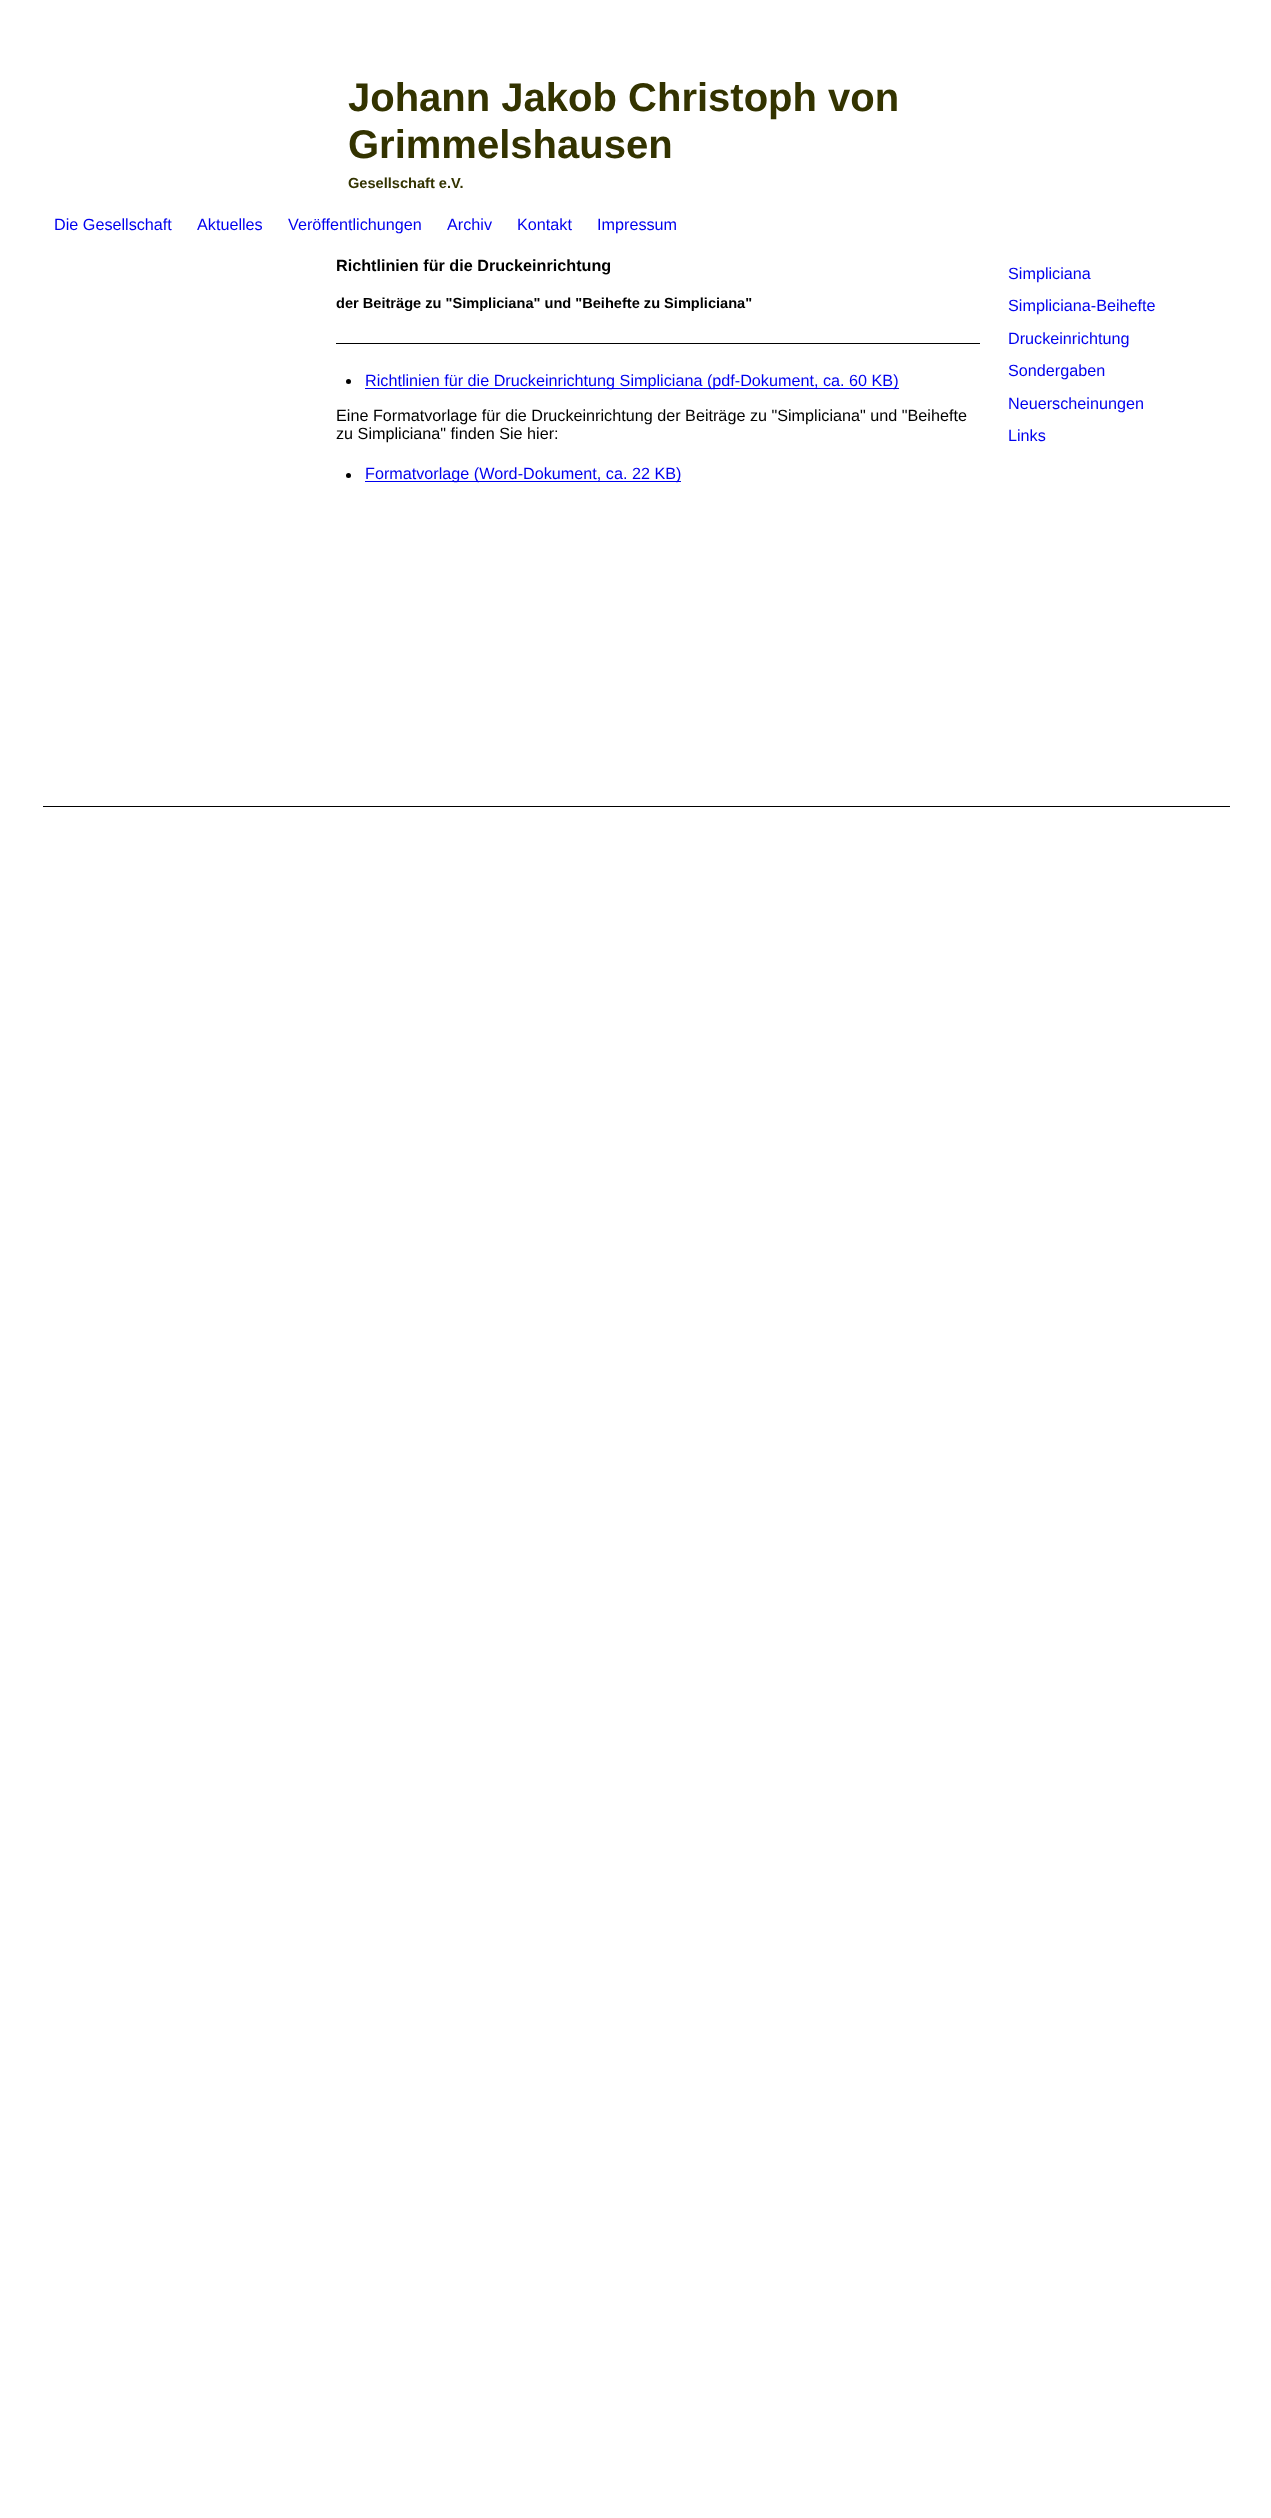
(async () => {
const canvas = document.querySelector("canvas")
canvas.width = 1271
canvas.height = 2518
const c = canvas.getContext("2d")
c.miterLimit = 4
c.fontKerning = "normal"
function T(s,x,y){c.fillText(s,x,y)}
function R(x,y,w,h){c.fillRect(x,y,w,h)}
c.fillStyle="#fff"
R(0,0,1271,2518)
c.font="bold 40px Liberation Sans"
c.fillStyle="#330"
T("Johann Jakob Christoph von",348,111)
T("Grimmelshausen",348,158)
c.font="bold 14.6px Liberation Sans"
T("Gesellschaft e.V.",348,188)
c.font="16.2px Liberation Sans"
c.fillStyle="#00e"
T("Die Gesellschaft",54,230)
T("Aktuelles",197,230)
T("Veröffentlichungen",288,230)
T("Archiv",447,230)
T("Kontakt",517,230)
T("Impressum",597,230)
c.font="bold 16.2px Liberation Sans"
c.fillStyle="#000"
T("Richtlinien für die Druckeinrichtung",336,271)
c.font="bold 14.6px Liberation Sans"
T("der Beiträge zu \"Simpliciana\" und \"Beihefte zu Simpliciana\"",336,308)
R(336,343,644,1)
c.beginPath()
c.arc(348.5,381.5,2.5,0,7)
c.fill()
c.fillStyle="#00e"
R(365,388,534,1)
c.font="16.2px Liberation Sans"
T("Richtlinien für die Druckeinrichtung Simpliciana (pdf-Dokument, ca. 60 KB)",365,386)
c.fillStyle="#000"
T("Eine Formatvorlage für die Druckeinrichtung der Beiträge zu \"Simpliciana\" und \"Beihefte",336,421)
T("zu Simpliciana\" finden Sie hier:",336,439)
c.beginPath()
c.arc(348.5,475.5,2.5,0,7)
c.fill()
c.fillStyle="#00e"
R(365,481,316,1)
T("Formatvorlage (Word-Dokument, ca. 22 KB)",365,479)
T("Simpliciana",1008,279)
T("Simpliciana-Beihefte",1008,311)
T("Druckeinrichtung",1008,344)
T("Sondergaben",1008,376)
T("Neuerscheinungen",1008,409)
T("Links",1008,441)
c.fillStyle="#000"
R(43,806,1187,1)
})()
